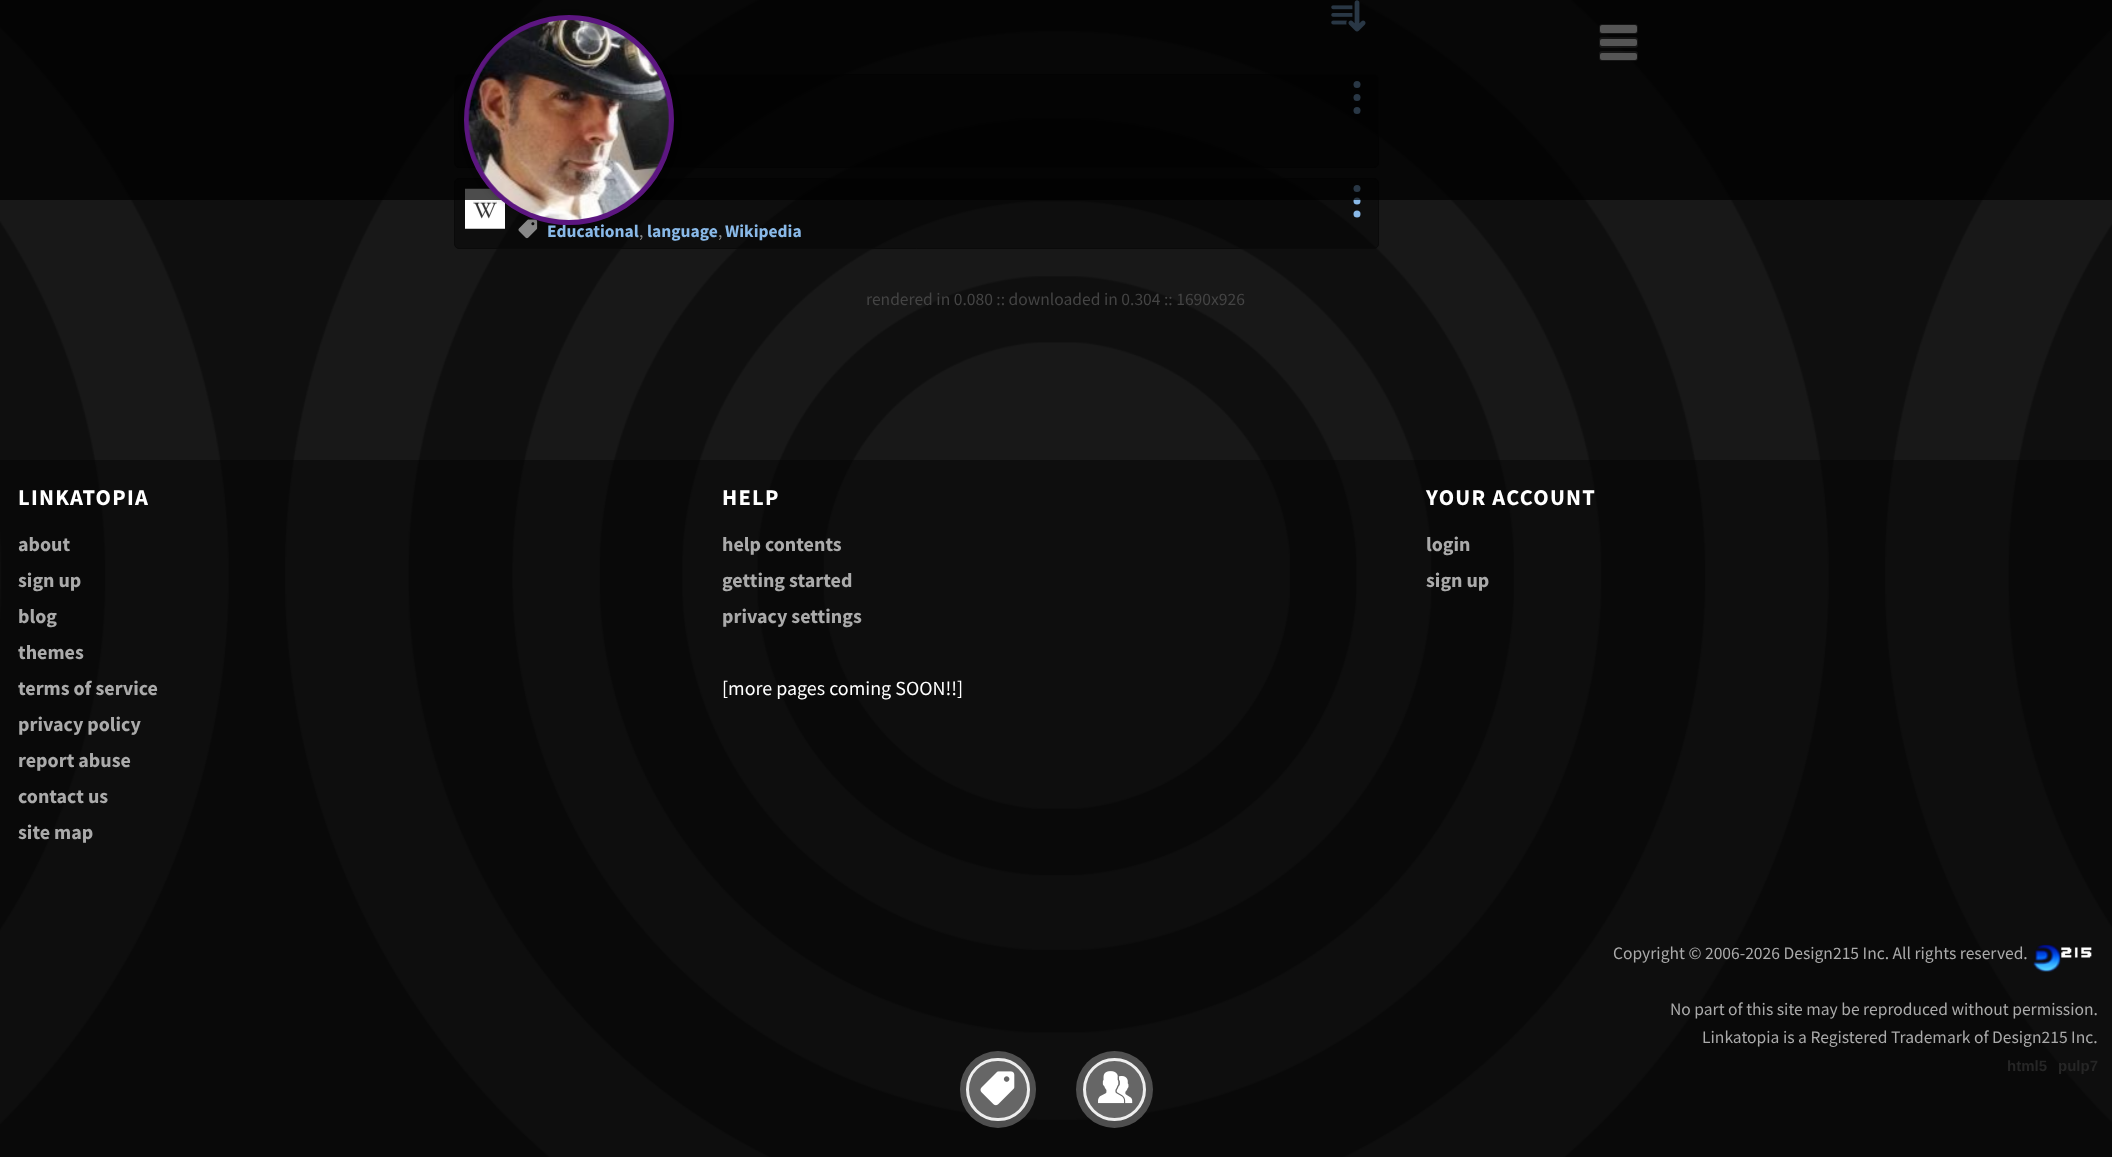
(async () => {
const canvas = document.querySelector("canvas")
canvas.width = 2112
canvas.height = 1157
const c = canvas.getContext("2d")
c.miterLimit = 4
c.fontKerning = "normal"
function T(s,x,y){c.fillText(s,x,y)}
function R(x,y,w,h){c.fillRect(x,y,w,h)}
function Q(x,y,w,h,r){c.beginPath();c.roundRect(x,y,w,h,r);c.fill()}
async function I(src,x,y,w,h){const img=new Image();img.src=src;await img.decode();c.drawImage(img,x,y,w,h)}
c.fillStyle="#fff"
R(0,0,2112,1157)
await I("1.png",0,793,2112,364)
await I("2.png",0,0,2112,793)
await I("4.png",1331,0,35,32)
c.fillStyle="#00000066"
c.beginPath()
c.roundRect(454.5,74.5,924,93,4.5)
c.fill()
c.strokeStyle="#0a0a0a"
c.stroke()
c.fillStyle="#89b9e8"
c.beginPath()
c.arc(1357,84.5,3.5,0,7)
c.fill()
c.beginPath()
c.arc(1357,97.5,3.5,0,7)
c.fill()
c.beginPath()
c.arc(1357,110.5,3.5,0,7)
c.fill()
c.fillStyle="#00000066"
c.beginPath()
c.roundRect(454.5,178.5,924,70,4.5)
c.fill()
c.stroke()
await I("5.png",465,188,40,41)
c.fillStyle="#89b9e8"
c.beginPath()
c.arc(1357,188.5,3.5,0,7)
c.fill()
c.beginPath()
c.arc(1357,201,3.5,0,7)
c.fill()
c.fillStyle="#000000b3"
R(0,0,2112,200)
await I("6.png",518,219,20,20)
c.fillStyle="#00000033"
c.filter="blur(3px)"
c.beginPath()
c.roundRect(465,16,210,210,105)
c.fill()
c.filter="none"
c.font="bold 17.5px Source Sans Pro"
c.fillStyle="#89b9e8"
T("Educational",547,237)
T("language",647,237)
c.fillStyle="#5c1680"
c.beginPath()
c.arc(569,120,102.5,0,7)
c.fill()
c.strokeStyle="#5c1680"
c.lineWidth=5
c.stroke()
await I("3.png",468,20,201,200)
c.fillStyle="#55555533"
Q(1599,24,39,10,3)
c.fillStyle="#555"
Q(1600,25,37,8,2)
c.fillStyle="#55555533"
Q(1599,37,39,11,3)
c.fillStyle="#555"
Q(1600,39,37,7,2)
c.fillStyle="#55555533"
Q(1599,51,39,10,3)
c.fillStyle="#555"
Q(1600,53,37,7,2)
c.fillStyle="#89b9e8"
c.beginPath()
c.arc(1357,214,3.5,0,7)
c.fill()
c.font="17.5px Source Sans Pro"
c.fillStyle="#888"
T(",",639,237)
T(",",718,237)
c.font="bold 17.5px Source Sans Pro"
c.fillStyle="#89b9e8"
T("Wikipedia",725,237)
c.font="17.5px Source Sans Pro"
c.fillStyle="#444"
T("rendered in 0.080 :: downloaded in 0.304 :: 1690x926",866,305)
c.fillStyle="#00000066"
R(0,460,2112,697)
c.fillStyle="#606060cc"
Q(960,1051,76,77,38)
c.fillStyle="#666"
c.beginPath()
c.roundRect(967.5,1059.5,61,60,30)
c.fill()
c.strokeStyle="#eee"
c.lineWidth=3
c.stroke()
await I("7.png",980,1071,35,35)
c.fillStyle="#606060cc"
c.beginPath()
c.arc(1114.5,1089.5,38.5,0,7)
c.fill()
c.fillStyle="#666"
c.beginPath()
c.arc(1114.5,1089.5,30,0,7)
c.fill()
c.stroke()
await I("8.png",1098,1071,35,33)
c.letterSpacing="1.25px"
c.font="bold 22.5px Source Sans Pro"
c.fillStyle="#fff"
T("LINKATOPIA",18,505)
c.letterSpacing="0px"
c.font="bold 20px Source Sans Pro"
c.fillStyle="#aaa"
T("about",18,551)
T("sign up",18,587)
T("blog",18,623)
T("themes",18,659)
T("terms of service",18,695)
T("privacy policy",18,731)
T("report abuse",18,767)
T("contact us",18,803)
T("site map",18,839)
c.letterSpacing="1.25px"
c.font="bold 22.5px Source Sans Pro"
c.fillStyle="#fff"
T("HELP",722,505)
c.letterSpacing="0px"
c.font="bold 20px Source Sans Pro"
c.fillStyle="#aaa"
T("help contents",722,551)
T("getting started",722,587)
T("privacy settings",722,623)
c.font="20px Source Sans Pro"
c.fillStyle="#fff"
T("[more pages coming SOON!!]",722,695)
c.letterSpacing="1.25px"
c.font="bold 22.5px Source Sans Pro"
T("YOUR ACCOUNT",1426,505)
c.letterSpacing="0px"
c.font="bold 20px Source Sans Pro"
c.fillStyle="#aaa"
T("login",1426,551)
T("sign up",1426,587)
c.font="17.5px Source Sans Pro"
T("Copyright © 2006-2026 Design215 Inc. All rights reserved.",1613,959)
await I("9.png",2033,944,59,28)
T("No part of this site may be reproduced without permission.",1670,1015)
T("Linkatopia is a Registered Trademark of Design215 Inc.",1702,1043)
c.font="bold 15px Liberation Sans"
c.fillStyle="#262626"
T("html5",2007,1071)
T("pulp7",2058,1071)
})()
